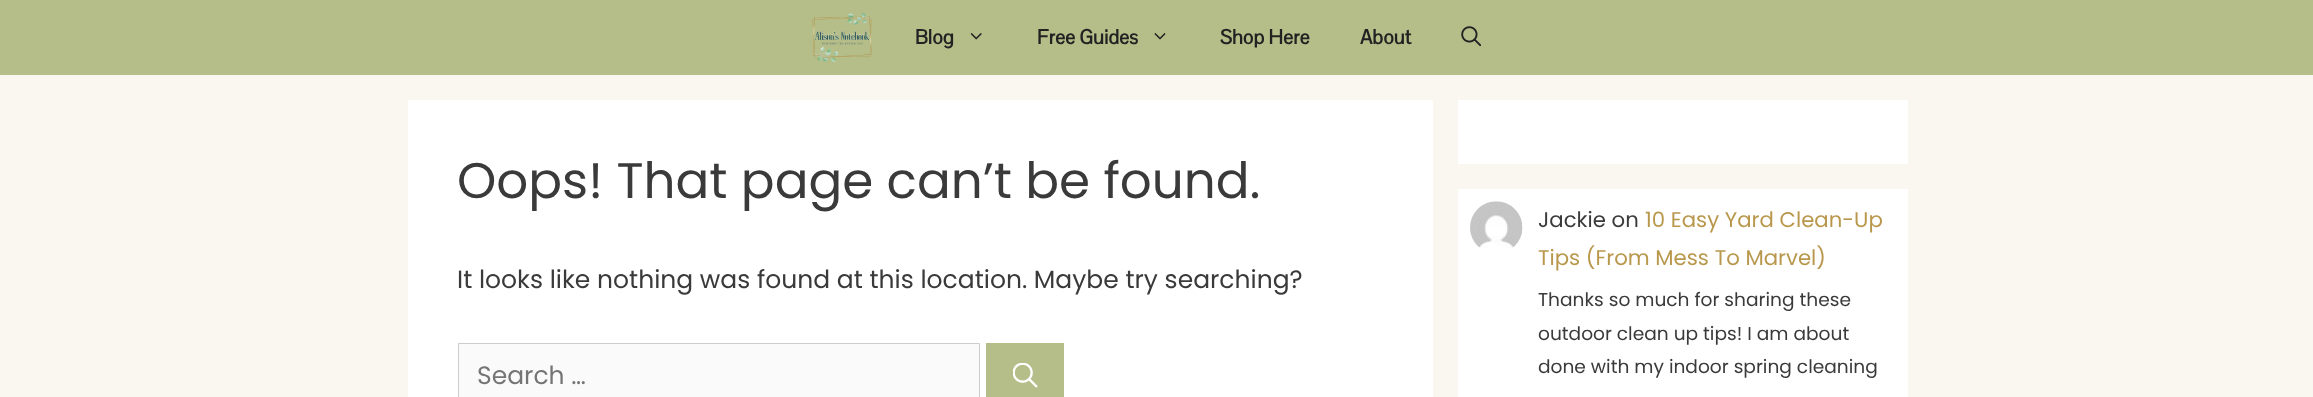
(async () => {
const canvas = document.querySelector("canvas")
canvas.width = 2313
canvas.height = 397
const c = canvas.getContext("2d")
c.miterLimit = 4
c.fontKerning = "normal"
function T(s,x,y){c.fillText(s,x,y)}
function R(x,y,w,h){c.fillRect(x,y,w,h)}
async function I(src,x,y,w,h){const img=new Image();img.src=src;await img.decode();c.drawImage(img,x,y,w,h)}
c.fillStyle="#f9f7f0"
R(0,0,2313,397)
c.fillStyle="#b5bd89"
R(0,0,2313,75)
await I("1.png",812,12,60,50)
c.font="bold 20px Pontano Sans"
c.fillStyle="#222"
T("Blog",915,44)
await I("2.png",970,33,12,7)
T("Free Guides",1037,44)
await I("3.png",1154,33,12,7)
T("Shop Here",1220,44)
T("About",1360,44)
await I("4.png",1461,26,20,20)
c.fillStyle="#fff"
R(408,100,1025,297)
c.font="50px Poppins"
c.fillStyle="#3a3a3a"
T("Oops! That page can’t be found.",457,198)
c.font="25px Poppins"
T("It looks like nothing was found at this location. Maybe try searching?",457,288)
c.fillStyle="#fafafa"
c.beginPath()
c.rect(458.5,343.5,521,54)
c.fill()
c.strokeStyle="#ccc"
c.stroke()
c.fillStyle="#757575"
T("Search …",477,384)
c.fillStyle="#b5bd89"
R(986,343,78,54)
await I("5.png",1013,363,25,25)
c.fillStyle="#fff"
R(1458,100,450,64)
R(1458,189,450,208)
await I("6.png",1470,201,53,47)
c.font="21.25px Poppins"
c.fillStyle="#3a3a3a"
T("Jackie on",1538,227)
c.fillStyle="#b9984d"
T("10 Easy Yard Clean-Up",1645,227)
T("Tips (From Mess To Marvel)",1538,265)
c.font="18.6px Poppins"
c.fillStyle="#3a3a3a"
T("Thanks so much for sharing these",1538,306)
T("outdoor clean up tips! I am about",1538,340)
T("done with my indoor spring cleaning",1538,373)
})()
